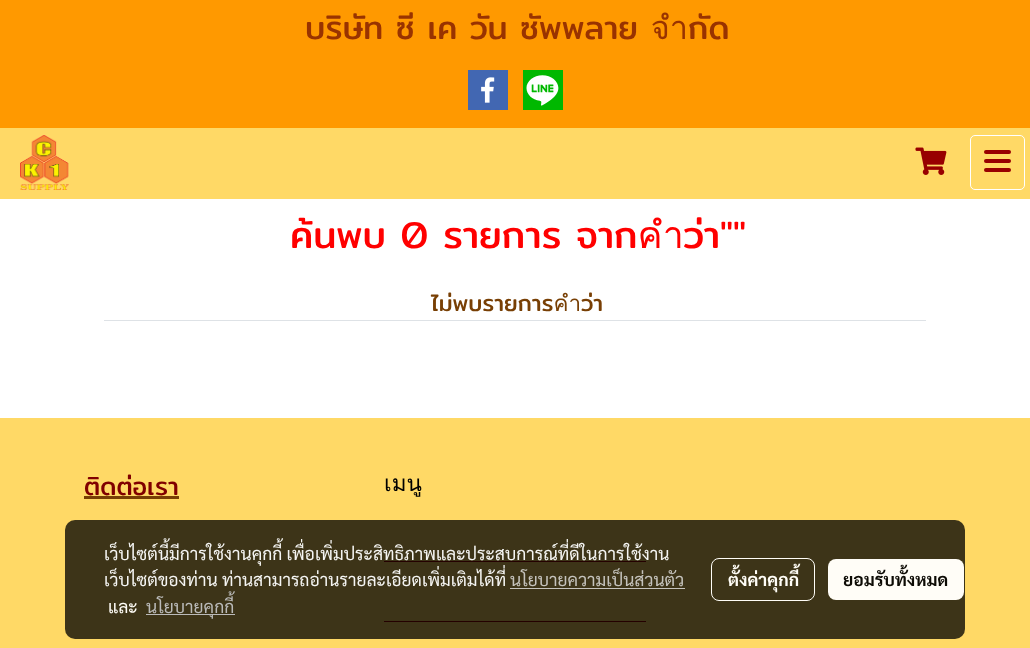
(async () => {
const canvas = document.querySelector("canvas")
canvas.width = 1030
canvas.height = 648
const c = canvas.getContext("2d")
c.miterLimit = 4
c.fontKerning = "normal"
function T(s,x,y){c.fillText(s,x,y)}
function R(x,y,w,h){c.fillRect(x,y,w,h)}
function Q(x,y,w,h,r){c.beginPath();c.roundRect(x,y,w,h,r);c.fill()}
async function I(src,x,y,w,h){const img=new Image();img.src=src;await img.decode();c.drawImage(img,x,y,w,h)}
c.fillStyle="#fff"
R(0,0,1030,648)
c.fillStyle="#ffd966"
R(0,128,1030,71)
c.fillStyle="#f90"
R(0,0,1030,128)
c.font="32.5px Mitr"
c.fillStyle="#930"
T("บริษัท ซี เค วัน ซัพพลาย จำกัด",305,39)
c.fillStyle="#4267b2"
R(468,70,40,40)
await I("1.png",481,77,14,26)
c.fillStyle="#00b800"
R(523,70,40,40)
await I("2.png",520,75,45,31)
await I("3.png",20,135,49,55)
await I("4.png",915,147,32,28)
c.beginPath()
c.roundRect(970.5,135.5,54,54,4.5)
c.strokeStyle="#fff"
c.stroke()
c.fillStyle="#980000"
Q(984,159,27,4,2)
Q(984,150,27,4,2)
Q(984,168,27,4,2)
c.font="37.5px Mitr"
c.fillStyle="#f00"
T("ค้นพบ 0 รายการ จากคำว่า\"\"",290,248)
c.fillStyle="#dee2e6"
R(104,320,822,1)
c.font="22.5px Mitr"
c.fillStyle="#783f04"
T("ไม่พบรายการคำว่า",431,311)
c.fillStyle="#ffd966"
R(0,418,1030,230)
c.font="25px Mitr"
c.fillStyle="#800000"
T("ติดต่อเรา",84,495)
c.fillStyle="#783f04"
R(84,496,95,3)
c.font="22.5px Loma"
c.fillStyle="#000"
T("เมนู",384,491)
c.fillStyle="#980000"
R(384,561,262,1)
R(384,621,262,1)
c.fillStyle="#000000c2"
Q(65,520,900,119,10)
c.font="17.5px Sarabun"
c.fillStyle="#f5f5f3"
T("เว็บไซต์นี้มีการใช้งานคุกกี้ เพื่อเพิ่มประสิทธิภาพและประสบการณ์ที่ดีในการใช้งาน",104,560)
T("เว็บไซต์ของท่าน ท่านสามารถอ่านรายละเอียดเพิ่มเติมได้ที่",104,586)
c.fillStyle="#c5c3bd"
T("นโยบายความเป็นส่วนตัว",510,586)
R(510,588,175,1)
c.fillStyle="#fffdf7"
T("และ",108,613)
c.fillStyle="#c2c2c2f2"
R(146,614,89,1)
c.fillStyle="#bbbbba"
T("นโยบายคุกกี้",146,613)
c.beginPath()
c.roundRect(711.5,558.5,103,42,7.5)
c.strokeStyle="#fffdf7"
c.stroke()
c.font="bold 17.5px Sarabun"
c.fillStyle="#fffdf7"
T("ตั้งค่าคุกกี้",728,586)
Q(828,559,136,41,8)
c.fillStyle="#0d0b05"
T("ยอมรับทั้งหมด",843,586)
})()
